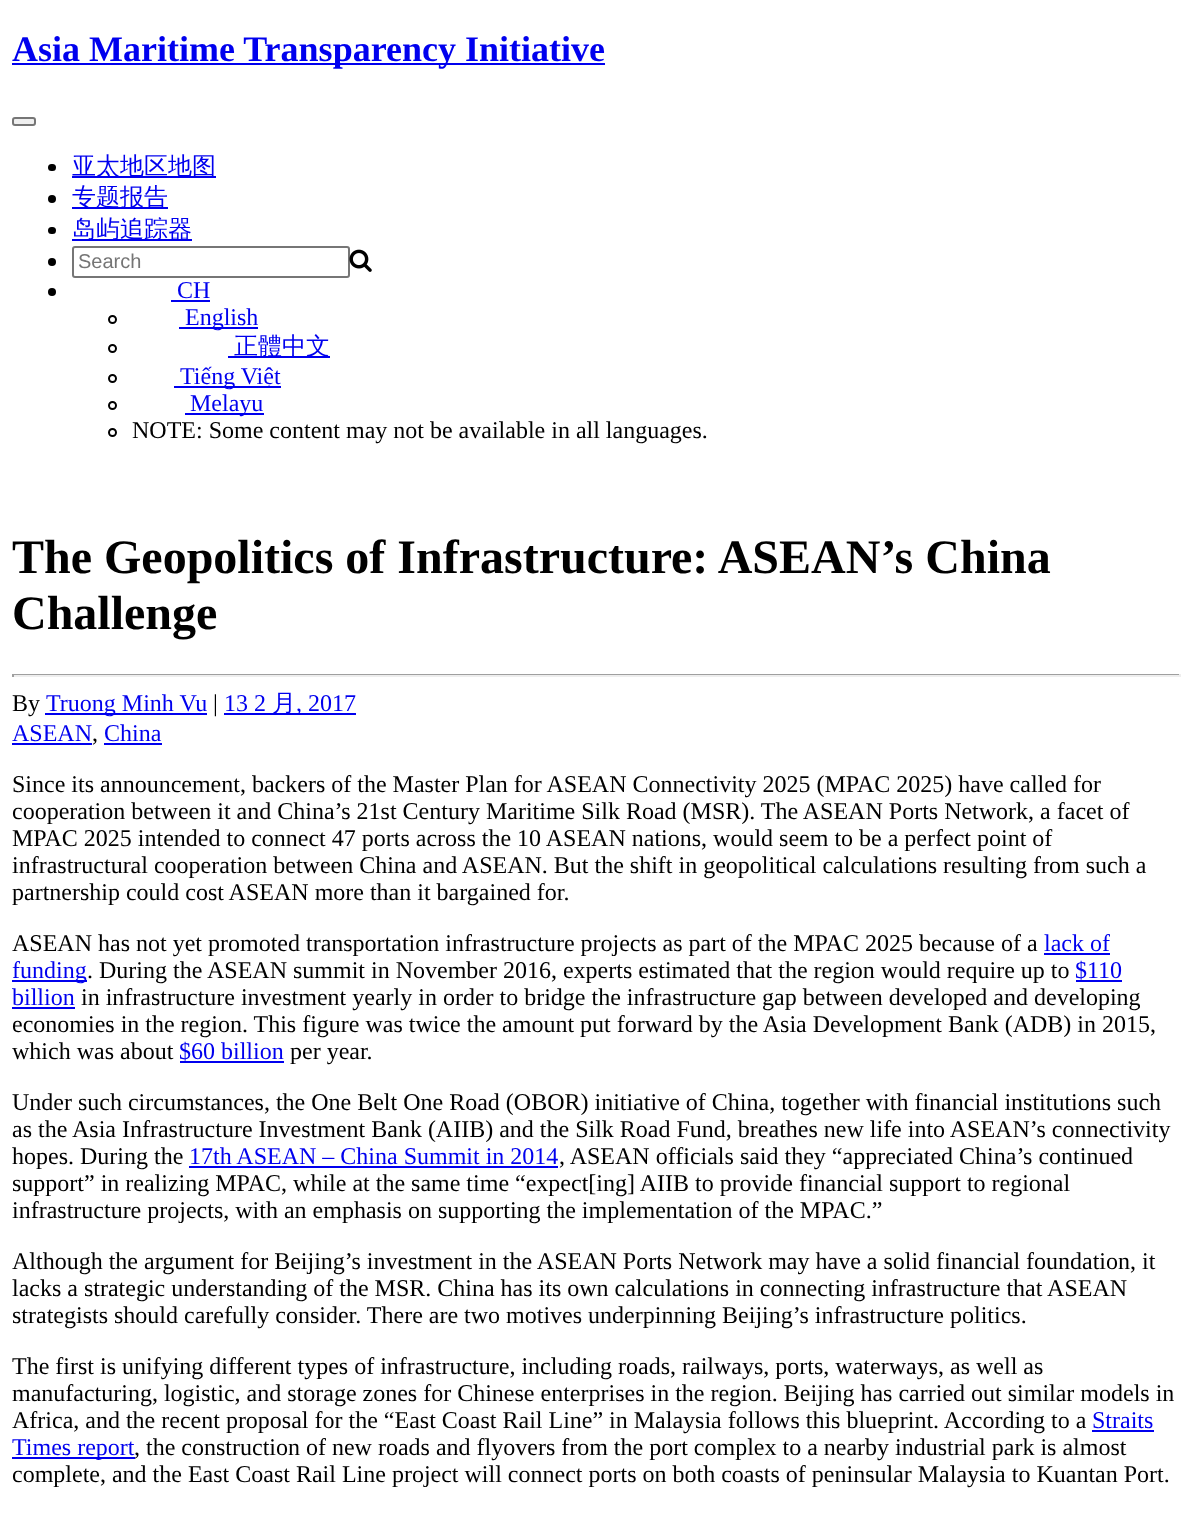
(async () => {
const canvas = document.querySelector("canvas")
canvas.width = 1192
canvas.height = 1525
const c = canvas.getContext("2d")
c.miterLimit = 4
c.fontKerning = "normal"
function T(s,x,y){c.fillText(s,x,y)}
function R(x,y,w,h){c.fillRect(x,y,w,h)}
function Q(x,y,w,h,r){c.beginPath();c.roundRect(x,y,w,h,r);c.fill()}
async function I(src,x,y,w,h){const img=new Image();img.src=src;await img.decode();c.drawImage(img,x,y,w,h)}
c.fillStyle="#fff"
R(0,0,1192,1525)
c.fillStyle="#00e"
R(12,63,593,2)
c.font="bold 36px Liberation Serif"
T("Asia Maritime Transparency Initiative",12,61)
c.fillStyle="#efefef"
c.beginPath()
c.roundRect(13,118,22,7,2)
c.fill()
c.strokeStyle="#767676"
c.lineWidth=2
c.stroke()
c.fillStyle="#000"
Q(48,164,8,7,3.5)
c.fillStyle="#00e"
R(72,176,144,2)
c.font="500 24px WenQuanYi Zen Hei"
T("亚太地区地图",72,174)
c.fillStyle="#000"
c.beginPath()
c.arc(52,199,4,0,7)
c.fill()
c.fillStyle="#00e"
R(72,207,96,2)
T("专题报告",72,205)
c.fillStyle="#000"
Q(48,227,8,7,3.5)
c.fillStyle="#00e"
R(72,239,120,2)
T("岛屿追踪器",72,237)
c.fillStyle="#000"
c.beginPath()
c.arc(52,262,4,0,7)
c.fill()
c.beginPath()
c.roundRect(73,247,276,30,2)
c.stroke()
c.font="20px Liberation Sans"
c.fillStyle="#757575"
T("Search",78,268)
await I("1.png",349,249,23,23)
c.fillStyle="#000"
c.beginPath()
c.arc(52,292,4,0,7)
c.fill()
c.font="24px Liberation Serif"
c.fillStyle="#00e"
T("CH",177,298)
R(171,300,39,2)
c.beginPath()
c.arc(112.5,319.5,3.5,0,7)
c.strokeStyle="#000"
c.stroke()
R(179,327,79,2)
T("English",185,325)
c.beginPath()
c.arc(112.5,348.5,3.5,0,7)
c.stroke()
R(228,356,102,2)
c.font="500 24px WenQuanYi Zen Hei"
T("正體中文",234,354)
c.beginPath()
c.arc(112.5,378.5,3.5,0,7)
c.stroke()
R(174,386,107,2)
c.font="24px Liberation Serif"
T("Tiếng Việt",180,384)
c.beginPath()
c.arc(112.5,405.5,3.5,0,7)
c.stroke()
R(185,413,79,2)
T("Melayu",190,411)
c.beginPath()
c.arc(112.5,432.5,3.5,0,7)
c.stroke()
c.fillStyle="#000"
T("NOTE: Some content may not be available in all languages.",132,438)
c.font="bold 48px Liberation Serif"
T("The Geopolitics of Infrastructure: ASEAN’s China",12,573)
T("Challenge",12,629)
c.fillStyle="#9f9f9f"
R(12,674,1169,1)
c.fillStyle="#eee"
R(1179,674,2,3)
R(12,675,1169,2)
c.fillStyle="#9f9f9f"
R(12,674,2,3)
c.font="24px Liberation Serif"
c.fillStyle="#000"
T("By",12,711)
c.fillStyle="#00e"
R(45,713,162,2)
T("Truong Minh Vu",46,711)
c.fillStyle="#000"
T("|",213,711)
c.fillStyle="#00e"
T("13 2",224,711)
R(224,713,132,2)
c.font="500 24px WenQuanYi Zen Hei"
T("月",272,711)
c.font="24px Liberation Serif"
T(", 2017",296,711)
T("ASEAN",12,741)
c.fillStyle="#000"
T(",",92,741)
c.fillStyle="#00e"
R(12,743,80,2)
R(104,743,58,2)
T("China",104,741)
c.fillStyle="#000"
T("Since its announcement, backers of the Master Plan for ASEAN Connectivity 2025 (MPAC 2025) have called for",12,792)
T("cooperation between it and China’s 21st Century Maritime Silk Road (MSR). The ASEAN Ports Network, a facet of",12,819)
T("MPAC 2025 intended to connect 47 ports across the 10 ASEAN nations, would seem to be a perfect point of",12,846)
T("infrastructural cooperation between China and ASEAN. But the shift in geopolitical calculations resulting from such a",12,873)
T("partnership could cost ASEAN more than it bargained for.",12,900)
T("ASEAN has not yet promoted transportation infrastructure projects as part of the MPAC 2025 because of a",12,951)
c.fillStyle="#00e"
T("lack of",1044,951)
R(1044,953,66,2)
R(12,980,75,2)
T("funding",12,978)
c.fillStyle="#000"
T(". During the ASEAN summit in November 2016, experts estimated that the region would require up to",87,978)
c.fillStyle="#00e"
T("$110",1075,978)
R(1076,980,46,2)
T("billion",12,1005)
R(12,1007,63,2)
c.fillStyle="#000"
T("in infrastructure investment yearly in order to bridge the infrastructure gap between developed and developing",81,1005)
T("economies in the region. This figure was twice the amount put forward by the Asia Development Bank (ADB) in 2015,",12,1032)
T("which was about",12,1059)
c.fillStyle="#00e"
T("$60 billion",179,1059)
R(180,1061,104,2)
c.fillStyle="#000"
T("per year.",290,1059)
T("Under such circumstances, the One Belt One Road (OBOR) initiative of China, together with financial institutions such",12,1110)
T("as the Asia Infrastructure Investment Bank (AIIB) and the Silk Road Fund, breathes new life into ASEAN’s connectivity",12,1137)
T("hopes. During the",12,1164)
c.fillStyle="#00e"
T("17th ASEAN – China Summit in 2014",189,1164)
R(189,1166,369,2)
c.fillStyle="#000"
T(", ASEAN officials said they “appreciated China’s continued",559,1164)
T("support” in realizing MPAC, while at the same time “expect[ing] AIIB to provide financial support to regional",12,1191)
T("infrastructure projects, with an emphasis on supporting the implementation of the MPAC.”",12,1218)
T("Although the argument for Beijing’s investment in the ASEAN Ports Network may have a solid financial foundation, it",12,1269)
T("lacks a strategic understanding of the MSR. China has its own calculations in connecting infrastructure that ASEAN",12,1296)
T("strategists should carefully consider. There are two motives underpinning Beijing’s infrastructure politics.",12,1323)
T("The first is unifying different types of infrastructure, including roads, railways, ports, waterways, as well as",12,1374)
T("manufacturing, logistic, and storage zones for Chinese enterprises in the region. Beijing has carried out similar models in",12,1401)
T("Africa, and the recent proposal for the “East Coast Rail Line” in Malaysia follows this blueprint. According to a",12,1428)
c.fillStyle="#00e"
T("Straits",1092,1428)
R(1092,1430,62,2)
R(12,1457,123,2)
T("Times report",12,1455)
c.fillStyle="#000"
T(", the construction of new roads and flyovers from the port complex to a nearby industrial park is almost",134,1455)
T("complete, and the East Coast Rail Line project will connect ports on both coasts of peninsular Malaysia to Kuantan Port.",12,1482)
})()
